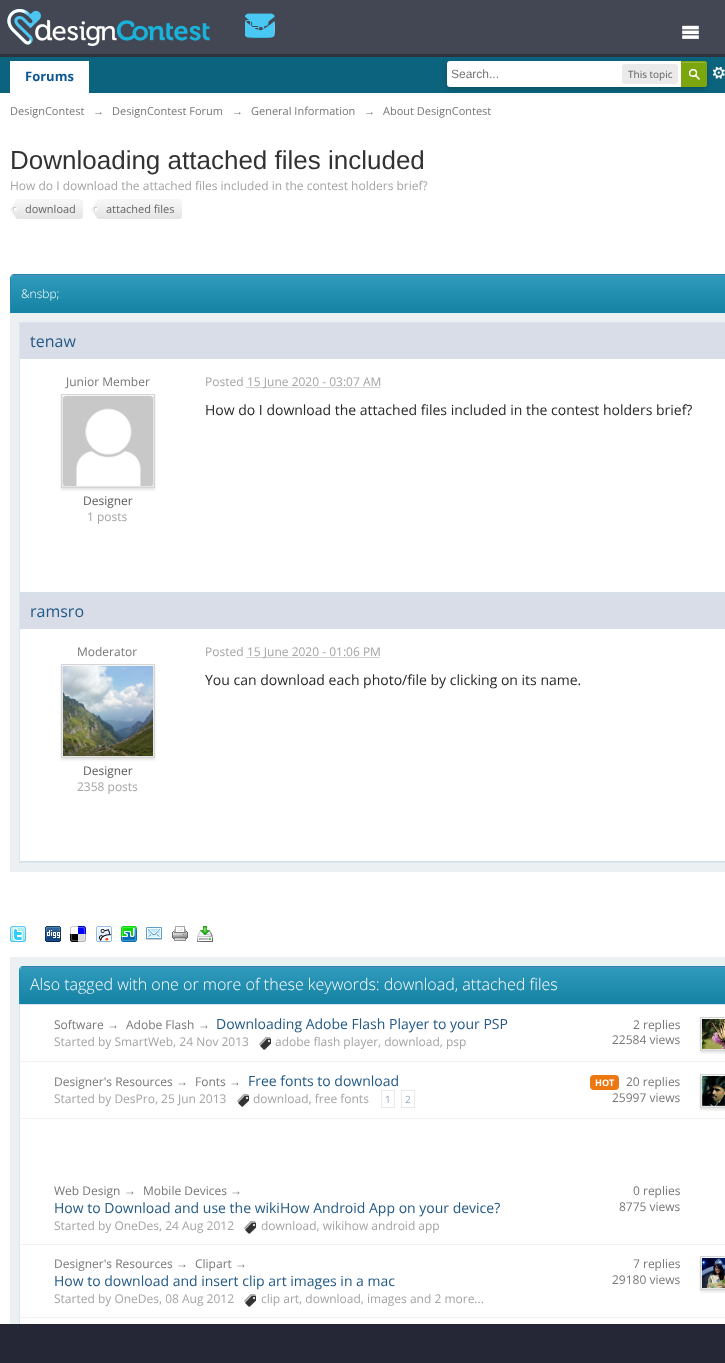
(async () => {
const canvas = document.querySelector("canvas")
canvas.width = 725
canvas.height = 1363
const c = canvas.getContext("2d")
c.miterLimit = 4
c.fontKerning = "normal"
function T(s,x,y){c.fillText(s,x,y)}
function R(x,y,w,h){c.fillRect(x,y,w,h)}
function Q(x,y,w,h,r){c.beginPath();c.roundRect(x,y,w,h,r);c.fill()}
async function I(src,x,y,w,h){const img=new Image();img.src=src;await img.decode();c.drawImage(img,x,y,w,h)}
let gradient, path
c.fillStyle="#0c637d"
R(0,0,725,1363)
c.fillStyle="#434753"
R(0,0,725,54)
await I("6.png",713,67,12,12)
c.fillStyle="#fff"
R(0,93,725,1231)
c.fillStyle="#00000033"
c.filter="blur(2px)"
c.beginPath()
c.roundRect(447,63,260,26,4)
c.fill()
c.filter="none"
c.fillStyle="#2f323b"
R(0,54,725,3)
await I("1.png",7,9,203,37)
await I("2.png",245,20,30,18)
await I("3.png",245,13,30,25)
await I("4.png",682,25,17,14)
c.fillStyle="#fff"
R(10,61,79,32)
c.font="bold 13px Open Sans"
c.fillStyle="#0b5794"
T("Forums",25,81)
c.fillStyle="#fff"
c.beginPath()
c.roundRect(447,61,260,26,[3,4,4,3])
c.fill()
c.font="12px Liberation Sans"
c.fillStyle="#777"
T("Search...",451,78)
c.fillStyle="#eaeaea"
Q(622,64,56,20,3)
c.font="10px Open Sans"
c.fillStyle="#5a5a5a"
T("This topic",628,78)
c.fillStyle="#7ba60d"
c.beginPath()
c.roundRect(681,61,26,26,[0,3,3,0])
c.fill()
await I("5.png",689,69,11,11)
c.fillStyle="#95b83d"
path = new Path2D("M682 63h22c1 0 2 1 2 2v-1c0-1-1-2-2-2h-22z")
c.fill(path)
c.beginPath()
c.roundRect(681.5,61.5,25,25,[0,2.5,2.5,0])
c.strokeStyle="#7ba60d"
c.stroke()
c.font="11px Open Sans"
c.fillStyle="#777"
T("DesignContest",10,115)
c.font="11px Liberation Sans"
T("→",93,115)
c.font="11px Open Sans"
T("DesignContest Forum",112,115)
c.font="11px Liberation Sans"
T("→",232,115)
c.font="11px Open Sans"
T("General Information",251,115)
c.font="11px Liberation Sans"
T("→",364,115)
c.font="11px Open Sans"
T("About DesignContest",383,115)
c.font="26px Liberation Sans"
c.fillStyle="#323232"
T("Downloading attached files included",10,169)
c.font="12px Open Sans"
c.fillStyle="#a4a4a4"
T("How do I download the attached files included in the contest holders brief?",10,190)
await I("7.png",10,199,73,20)
c.font="11px Open Sans"
c.fillStyle="#656565"
T("download",25,213)
await I("8.png",91,199,91,20)
T("attached files",106,213)
gradient = c.createLinearGradient(490,275,490,313)
gradient.addColorStop(0,"#319bbc")
gradient.addColorStop(1,"#1482a4")
c.fillStyle = gradient
path = new Path2D("M14 275h711c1.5 0 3 1.5 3 3v35h-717v-35c0-1.5 1.5-3 3-3z")
c.fill(path)
c.fillStyle="#528cbc"
path = new Path2D("M14 276h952c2 0 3 1 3 3c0-2-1-4-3-4h-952c-2 0-3 2-3 4c0-2 1-3 3-3z")
c.fill(path)
c.fillStyle="#1d8caf"
path = new Path2D("M14 274h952c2 0 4 2 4 4v35h-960v-35c0-2 2-4 4-4zm0 1h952c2 0 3 1 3 3v35h-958v-35c0-2 1-3 3-3z")
c.fill(path,"evenodd")
c.font="300 12px Open Sans"
c.fillStyle="#fff"
T("&nsbp;",21,298)
c.fillStyle="#ebf0f3"
R(10,313,715,559)
c.fillStyle="#fff"
R(20,359,705,502)
c.strokeStyle="#dbe4ef"
c.strokeRect(19.5,322.5,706,540)
c.fillStyle="#d6e2eb"
R(20,592,705,1)
c.fillStyle="#d8dde8"
R(20,323,705,36)
c.font="16px Open Sans"
c.fillStyle="#225985"
T("tenaw",30,347)
c.font="12px Open Sans"
c.fillStyle="#777"
T("Junior Member",66,386)
c.fillStyle="#0000001a"
c.filter="blur(1px)"
c.beginPath()
c.rect(61,396,94,94)
c.fill()
c.filter="none"
c.strokeStyle="#d5d5d5"
c.strokeRect(61.5,394.5,93,93)
await I("9.png",63,396,90,90)
c.fillStyle="#5a5a5a"
T("Designer",83,505)
c.fillStyle="#a4a4a4"
T("1 posts",87,521)
T("Posted",205,386)
path = new Path2D("M246.5 387.5h134.5")
c.strokeStyle="#a4a4a4"
c.setLineDash([1,1])
c.stroke(path)
T("15 June 2020 - 03:07 AM",247,386)
c.font="14px Open Sans"
c.fillStyle="#282828"
T("How do I download the attached files included in the contest holders brief?",205,415)
c.fillStyle="#d6e2eb"
R(20,861,705,1)
c.fillStyle="#d8dde8"
R(20,593,705,36)
c.font="16px Open Sans"
c.fillStyle="#225985"
T("ramsro",30,617)
c.font="12px Open Sans"
c.fillStyle="#777"
T("Moderator",77,656)
c.fillStyle="#0000001a"
c.filter="blur(1px)"
c.beginPath()
c.rect(61,666,94,94)
c.fill()
c.filter="none"
c.strokeStyle="#d5d5d5"
c.setLineDash([])
c.strokeRect(61.5,664.5,93,93)
await I("10.png",63,666,90,90)
c.fillStyle="#5a5a5a"
T("Designer",83,775)
c.fillStyle="#a4a4a4"
T("2358 posts",77,791)
T("Posted",205,656)
path = new Path2D("M246.5 657.5h134")
c.strokeStyle="#a4a4a4"
c.setLineDash([1,1])
c.stroke(path)
T("15 June 2020 - 01:06 PM",247,656)
c.font="14px Open Sans"
c.fillStyle="#282828"
T("You can download each photo/file by clicking on its name.",205,685)
await I("11.png",10,926,16,16)
await I("12.png",45,926,16,16)
await I("13.png",70,926,16,16)
await I("14.png",96,926,16,16)
await I("15.png",121,926,16,16)
await I("16.png",146,927,16,13)
await I("17.png",172,926,16,15)
await I("18.png",197,926,16,16)
c.fillStyle="#ebf0f3"
R(10,957,715,367)
gradient = c.createLinearGradient(490,967,490,1004)
gradient.addColorStop(0,"#319bbc")
gradient.addColorStop(1,"#1482a4")
c.fillStyle = gradient
path = new Path2D("M23 967h702c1.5 0 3 1.5 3 3v34h-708v-34c0-1.5 1.5-3 3-3z")
c.fill(path)
c.fillStyle="#528cbc"
path = new Path2D("M23 968h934c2 0 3 1 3 3c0-2-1-4-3-4h-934c-2 0-3 2-3 4c0-2 1-3 3-3z")
c.fill(path)
c.fillStyle="#1d8caf"
path = new Path2D("M23 966h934c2 0 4 2 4 4v34h-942v-34c0-2 2-4 4-4zm0 1h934c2 0 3 1 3 3v34h-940v-34c0-2 1-3 3-3z")
c.fill(path,"evenodd")
c.font="300 16px Open Sans"
c.fillStyle="#fff"
T("Also tagged with one or more of these keywords: download, attached files",30,990)
R(20,1005,705,319)
c.strokeStyle="#dbe4ef"
c.setLineDash([])
c.strokeRect(19.5,1004.5,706,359)
c.fillStyle="#f3f3f3"
R(20,1061,705,1)
c.fillStyle="#0000001a"
c.filter="blur(1px)"
c.beginPath()
c.rect(700,1019,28,34)
c.fill()
c.filter="none"
c.strokeStyle="#d5d5d5"
c.strokeRect(700.5,1017.5,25,33)
await I("19.png",702,1019,23,30)
c.font="12px Open Sans"
c.fillStyle="#777"
T("Software",54,1029)
c.font="12px Liberation Sans"
T("→",107,1029)
c.font="12px Open Sans"
T("Adobe Flash",126,1029)
c.font="12px Liberation Sans"
T("→",198,1029)
c.font="14px Open Sans"
c.fillStyle="#225985"
T("Downloading Adobe Flash Player to your PSP",216,1029)
c.font="12px Open Sans"
c.fillStyle="#a4a4a4"
T("Started by SmartWeb, 24 Nov 2013",54,1046)
await I("20.png",259,1037,12,13)
T("adobe flash player, download, psp",275,1046)
c.fillStyle="#777"
T("2 replies",633,1029)
T("22584 views",612,1044)
c.fillStyle="#f3f3f3"
R(20,1118,705,1)
c.fillStyle="#0000001a"
c.filter="blur(1px)"
c.beginPath()
c.rect(700,1076,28,34)
c.fill()
c.filter="none"
c.strokeRect(700.5,1074.5,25,33)
await I("21.png",702,1076,23,30)
c.fillStyle="#777"
T("Designer's Resources",54,1086)
c.font="12px Liberation Sans"
T("→",176,1086)
c.font="12px Open Sans"
T("Fonts",195,1086)
c.font="12px Liberation Sans"
T("→",229,1086)
c.font="14px Open Sans"
c.fillStyle="#225985"
T("Free fonts to download",248,1086)
c.font="12px Open Sans"
c.fillStyle="#a4a4a4"
T("Started by DesPro, 25 Jun 2013",54,1103)
await I("20.png",237,1094,12,13)
T("download, free fonts",253,1103)
c.strokeStyle="#e9e9e9"
c.strokeRect(381.5,1090.5,13,17)
c.font="10px Open Sans"
c.fillStyle="#91acc2"
T("1",385,1103)
c.strokeRect(401.5,1090.5,13,17)
T("2",405,1103)
c.fillStyle="#ed7710"
Q(590,1075,29,15,4)
c.font="bold 9px Open Sans"
c.fillStyle="#fff"
T("HOT",595,1086)
c.font="12px Open Sans"
c.fillStyle="#777"
T("20 replies",626,1086)
T("25997 views",612,1102)
T("Web Design",54,1195)
c.font="12px Liberation Sans"
T("→",124,1195)
c.font="12px Open Sans"
T("Mobile Devices",143,1195)
c.font="12px Liberation Sans"
T("→",230,1195)
c.font="14px Open Sans"
c.fillStyle="#225985"
T("How to Download and use the wikiHow Android App on your device?",54,1213)
c.font="12px Open Sans"
c.fillStyle="#a4a4a4"
T("Started by OneDes, 24 Aug 2012",54,1230)
await I("20.png",244,1221,12,13)
T("download, wikihow android app",261,1230)
c.fillStyle="#777"
T("0 replies",633,1195)
T("8775 views",619,1211)
c.fillStyle="#f3f3f3"
R(20,1244,705,1)
R(20,1317,705,1)
c.fillStyle="#0000001a"
c.filter="blur(1px)"
c.beginPath()
c.rect(700,1258,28,34)
c.fill()
c.filter="none"
c.strokeStyle="#d5d5d5"
c.strokeRect(700.5,1256.5,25,33)
await I("22.png",702,1258,23,30)
c.fillStyle="#777"
T("Designer's Resources",54,1268)
c.font="12px Liberation Sans"
T("→",176,1268)
c.font="12px Open Sans"
T("Clipart",195,1268)
c.font="12px Liberation Sans"
T("→",235,1268)
c.font="14px Open Sans"
c.fillStyle="#225985"
T("How to download and insert clip art images in a mac",54,1286)
c.font="12px Open Sans"
c.fillStyle="#a4a4a4"
T("Started by OneDes, 08 Aug 2012",54,1303)
await I("20.png",244,1294,12,13)
T("clip art, download, images and 2 more...",261,1303)
c.fillStyle="#777"
T("7 replies",633,1268)
T("29180 views",612,1284)
c.fillStyle="#252737"
R(0,1324,725,39)
})()
